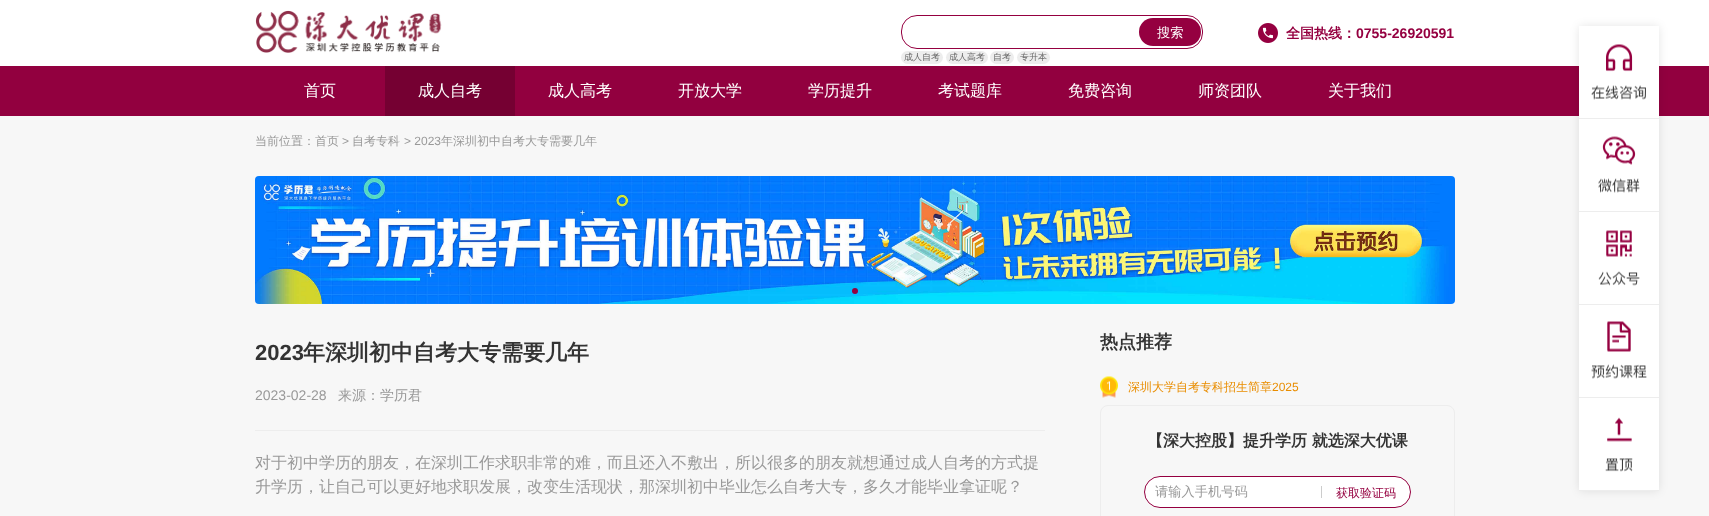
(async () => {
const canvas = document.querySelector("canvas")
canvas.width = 1709
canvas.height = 516
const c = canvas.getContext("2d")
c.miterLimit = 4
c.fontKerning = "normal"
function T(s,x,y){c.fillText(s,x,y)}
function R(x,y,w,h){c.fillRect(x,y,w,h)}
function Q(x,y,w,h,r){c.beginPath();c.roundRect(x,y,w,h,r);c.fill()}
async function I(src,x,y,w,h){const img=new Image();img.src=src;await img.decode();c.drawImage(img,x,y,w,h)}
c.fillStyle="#f7f7f7"
R(0,0,1709,516)
c.fillStyle="#fff"
R(0,0,1709,66)
await I("1.png",255,10,187,43)
c.beginPath()
c.roundRect(901.5,15.5,301,33,15.5)
c.strokeStyle="#950040"
c.stroke()
c.fillStyle="#950040"
Q(1139,18,62,28,14)
c.font="500 13.25px WenQuanYi Zen Hei"
c.fillStyle="#fff"
T("搜索",1157,37)
c.fillStyle="#ededed"
Q(901,51,42,13,6.5)
c.font="500 9px WenQuanYi Zen Hei"
c.fillStyle="#666"
T("成人自考",904,60)
c.fillStyle="#ededed"
Q(946,51,42,13,6.5)
c.fillStyle="#666"
T("成人高考",949,60)
c.fillStyle="#ededed"
Q(990,51,24,13,6.5)
c.fillStyle="#666"
T("自考",993,60)
c.fillStyle="#ededed"
Q(1017,51,33,13,6.5)
c.fillStyle="#666"
T("专升本",1020,60)
await I("2.png",1258,23,20,20)
c.font="bold 14px WenQuanYi Zen Hei"
c.fillStyle="#950040"
T("全国热线：",1286,38)
c.font="bold 14px Liberation Sans"
T("0755-26920591",1356,38)
c.fillStyle="#92003f"
R(0,66,1709,50)
c.fillStyle="#0000001a"
c.filter="blur(5px)"
c.beginPath()
c.roundRect(1579,26,80,465,4)
c.fill()
c.filter="none"
c.fillStyle="#fff"
R(1579,119,80,278)
R(1579,26,80,92)
c.fillStyle="#ededed"
R(1579,118,80,1)
await I("3.png",1591,44,55,56)
R(1579,211,80,1)
await I("4.png",1598,136,42,57)
R(1579,304,80,1)
await I("5.png",1598,230,42,56)
R(1579,397,80,1)
await I("6.png",1591,321,56,58)
c.fillStyle="#fff"
R(1579,398,80,92)
c.fillStyle="#ededed"
R(1579,490,80,1)
await I("7.png",1605,417,28,55)
c.font="500 16px WenQuanYi Zen Hei"
c.fillStyle="#fff"
T("首页",304,96)
c.fillStyle="#750032"
R(385,66,130,50)
c.fillStyle="#fff"
T("成人自考",418,96)
T("成人高考",548,96)
T("开放大学",678,96)
T("学历提升",808,96)
T("考试题库",938,96)
T("免费咨询",1068,96)
T("师资团队",1198,96)
T("关于我们",1328,96)
c.font="500 12px WenQuanYi Zen Hei"
c.fillStyle="#999"
T("当前位置：首页",255,145)
c.font="12px Liberation Sans"
T(">",342,145)
c.font="500 12px WenQuanYi Zen Hei"
T("自考专科",352,145)
c.font="12px Liberation Sans"
T("> 2023",404,145)
c.font="500 12px WenQuanYi Zen Hei"
T("年深圳初中自考大专需要几年",441,145)
await I("8.png",255,176,1200,128)
c.fillStyle="#950040"
c.beginPath()
c.arc(855,291,3,0,7)
c.fill()
c.fillStyle="#ededed"
R(255,430,790,1)
c.font="bold 22px Liberation Sans"
c.fillStyle="#333"
T("2023",255,360)
c.font="bold 22px WenQuanYi Zen Hei"
T("年深圳初中自考大专需要几年",303,360)
c.font="14px Liberation Sans"
c.fillStyle="#999"
T("2023-02-28",255,400)
c.font="500 14px WenQuanYi Zen Hei"
T("来源：学历君",338,400)
c.font="500 16px WenQuanYi Zen Hei"
T("对于初中学历的朋友，在深圳工作求职非常的难，而且还入不敷出，所以很多的朋友就想通过成人自考的方式提",255,468)
T("升学历，让自己可以更好地求职发展，改变生活现状，那深圳初中毕业怎么自考大专，多久才能毕业拿证呢？",255,492)
c.font="bold 18px WenQuanYi Zen Hei"
c.fillStyle="#333"
T("热点推荐",1100,348)
await I("9.png",1100,376,18,22)
c.font="500 12px WenQuanYi Zen Hei"
c.fillStyle="#e98d00"
T("深圳大学自考专科招生简章",1128,391)
c.font="12px Liberation Sans"
T("2025",1272,391)
c.beginPath()
c.roundRect(1100.5,405.5,354,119,7.5)
c.strokeStyle="#ededed"
c.stroke()
c.font="bold 16px WenQuanYi Zen Hei"
c.fillStyle="#333"
T("【深大控股】提升学历 就选深大优课",1147,446)
c.fillStyle="#fff"
c.beginPath()
c.roundRect(1144.5,476.5,266,31,15.5)
c.fill()
c.strokeStyle="#950040"
c.stroke()
c.font="500 13.25px WenQuanYi Zen Hei"
c.fillStyle="#999"
T("请输入手机号码",1155,496)
c.fillStyle="#ccc"
R(1321,486,1,12)
c.font="500 12px WenQuanYi Zen Hei"
c.fillStyle="#950040"
T("获取验证码",1336,497)
})()
